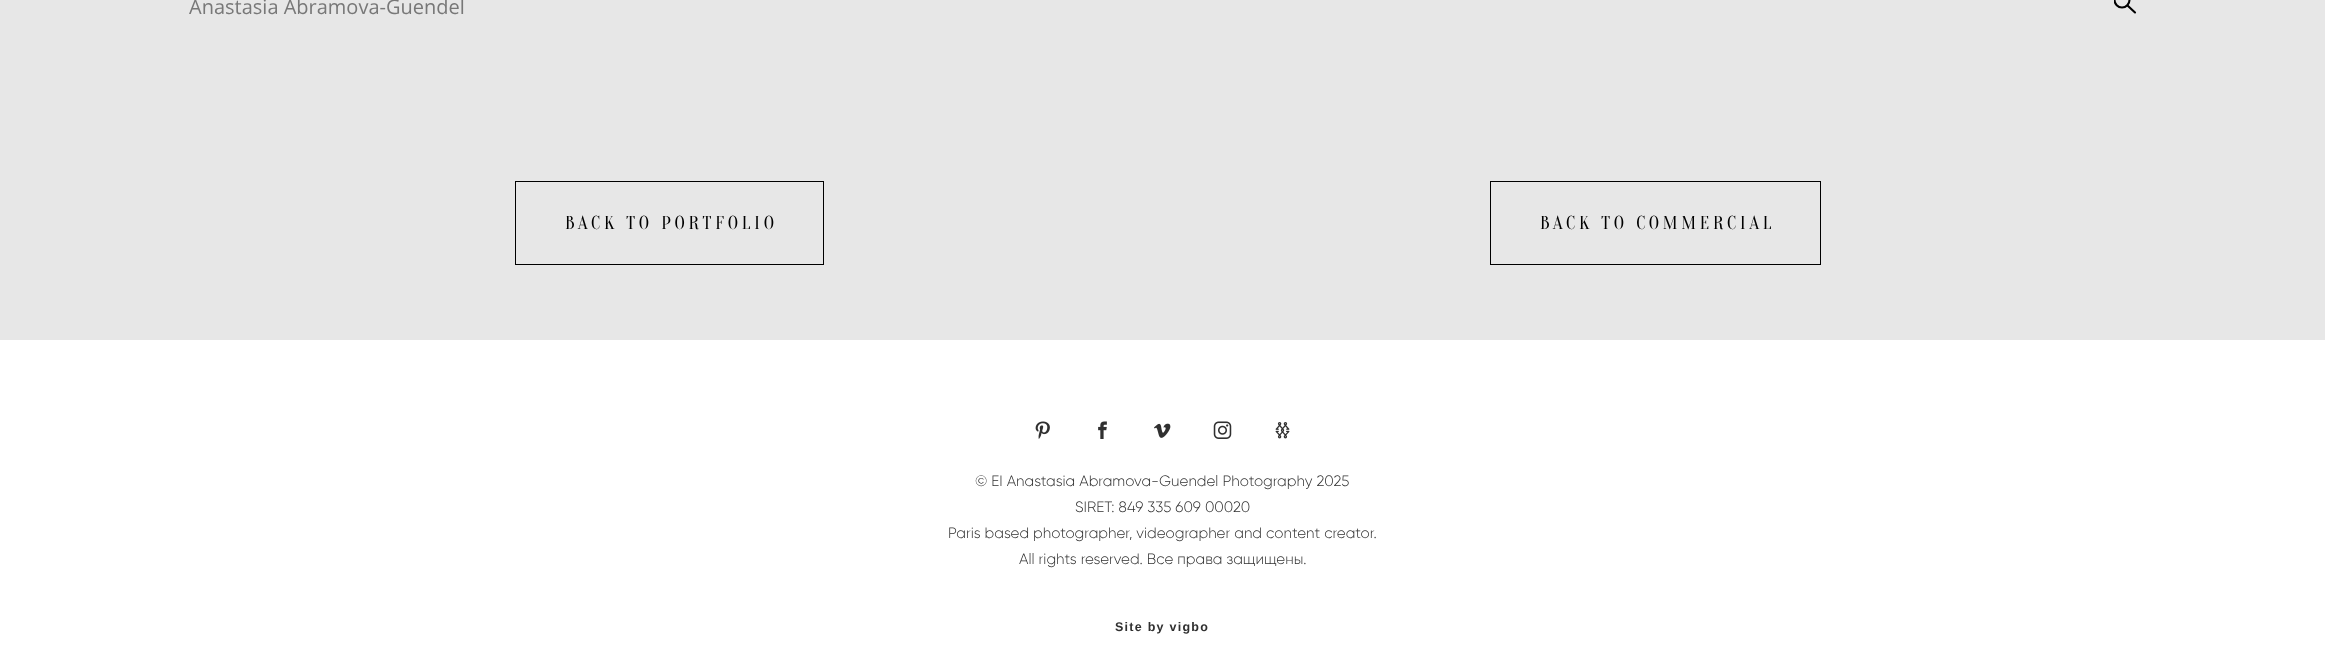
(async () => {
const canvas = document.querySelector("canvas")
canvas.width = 2325
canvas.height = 664
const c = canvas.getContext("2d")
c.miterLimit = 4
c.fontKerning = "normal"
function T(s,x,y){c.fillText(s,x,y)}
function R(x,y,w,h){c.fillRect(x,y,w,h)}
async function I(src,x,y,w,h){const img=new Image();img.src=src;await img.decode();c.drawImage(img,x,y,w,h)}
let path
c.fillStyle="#e7e7e7"
R(0,0,2325,664)
c.font="20px Open Sans"
c.fillStyle="#787878"
T("Anastasia Abramova-Guendel",189,14)
c.save()
c.beginPath()
c.rect(2114,0,22,14)
c.clip()
c.beginPath()
c.arc(2122,0,7.5,0,7)
c.strokeStyle="#000"
c.lineWidth=2.1
c.stroke()
c.restore()
path = new Path2D("M2127.5 5.5l7.5 7")
c.strokeStyle="#000"
c.lineWidth=2.1
c.lineCap="round"
c.lineJoin="round"
c.stroke(path)
c.lineWidth=1
c.lineJoin="miter"
c.strokeRect(515.5,181.5,308,83)
c.letterSpacing="3.75px"
c.font="18.75px Oranienbaum"
c.fillStyle="#000"
T("BACK TO PORTFOLIO",565,229)
c.strokeRect(1490.5,181.5,330,83)
T("BACK TO COMMERCIAL",1540,229)
c.fillStyle="#fff"
R(0,340,2325,324)
await I("1.png",1035,421,15,18)
await I("2.png",1098,421,9,18)
await I("3.png",1154,423,17,15)
await I("4.png",1213,421,19,18)
await I("5.png",1275,422,15,17)
c.letterSpacing="0px"
c.font="300 15px Gilroy"
c.fillStyle="#303030"
T("© EI Anastasia Abramova-Guendel Photography 2025",975,486)
T("SIRET: 849 335 609 00020",1075,512)
T("Paris based photographer, videographer and content creator.",948,538)
T("All rights reserved. Все права защищены.",1019,564)
c.letterSpacing="1.25px"
c.font="bold 12.5px Liberation Sans"
T("Site by vigbo",1115,631)
})()
